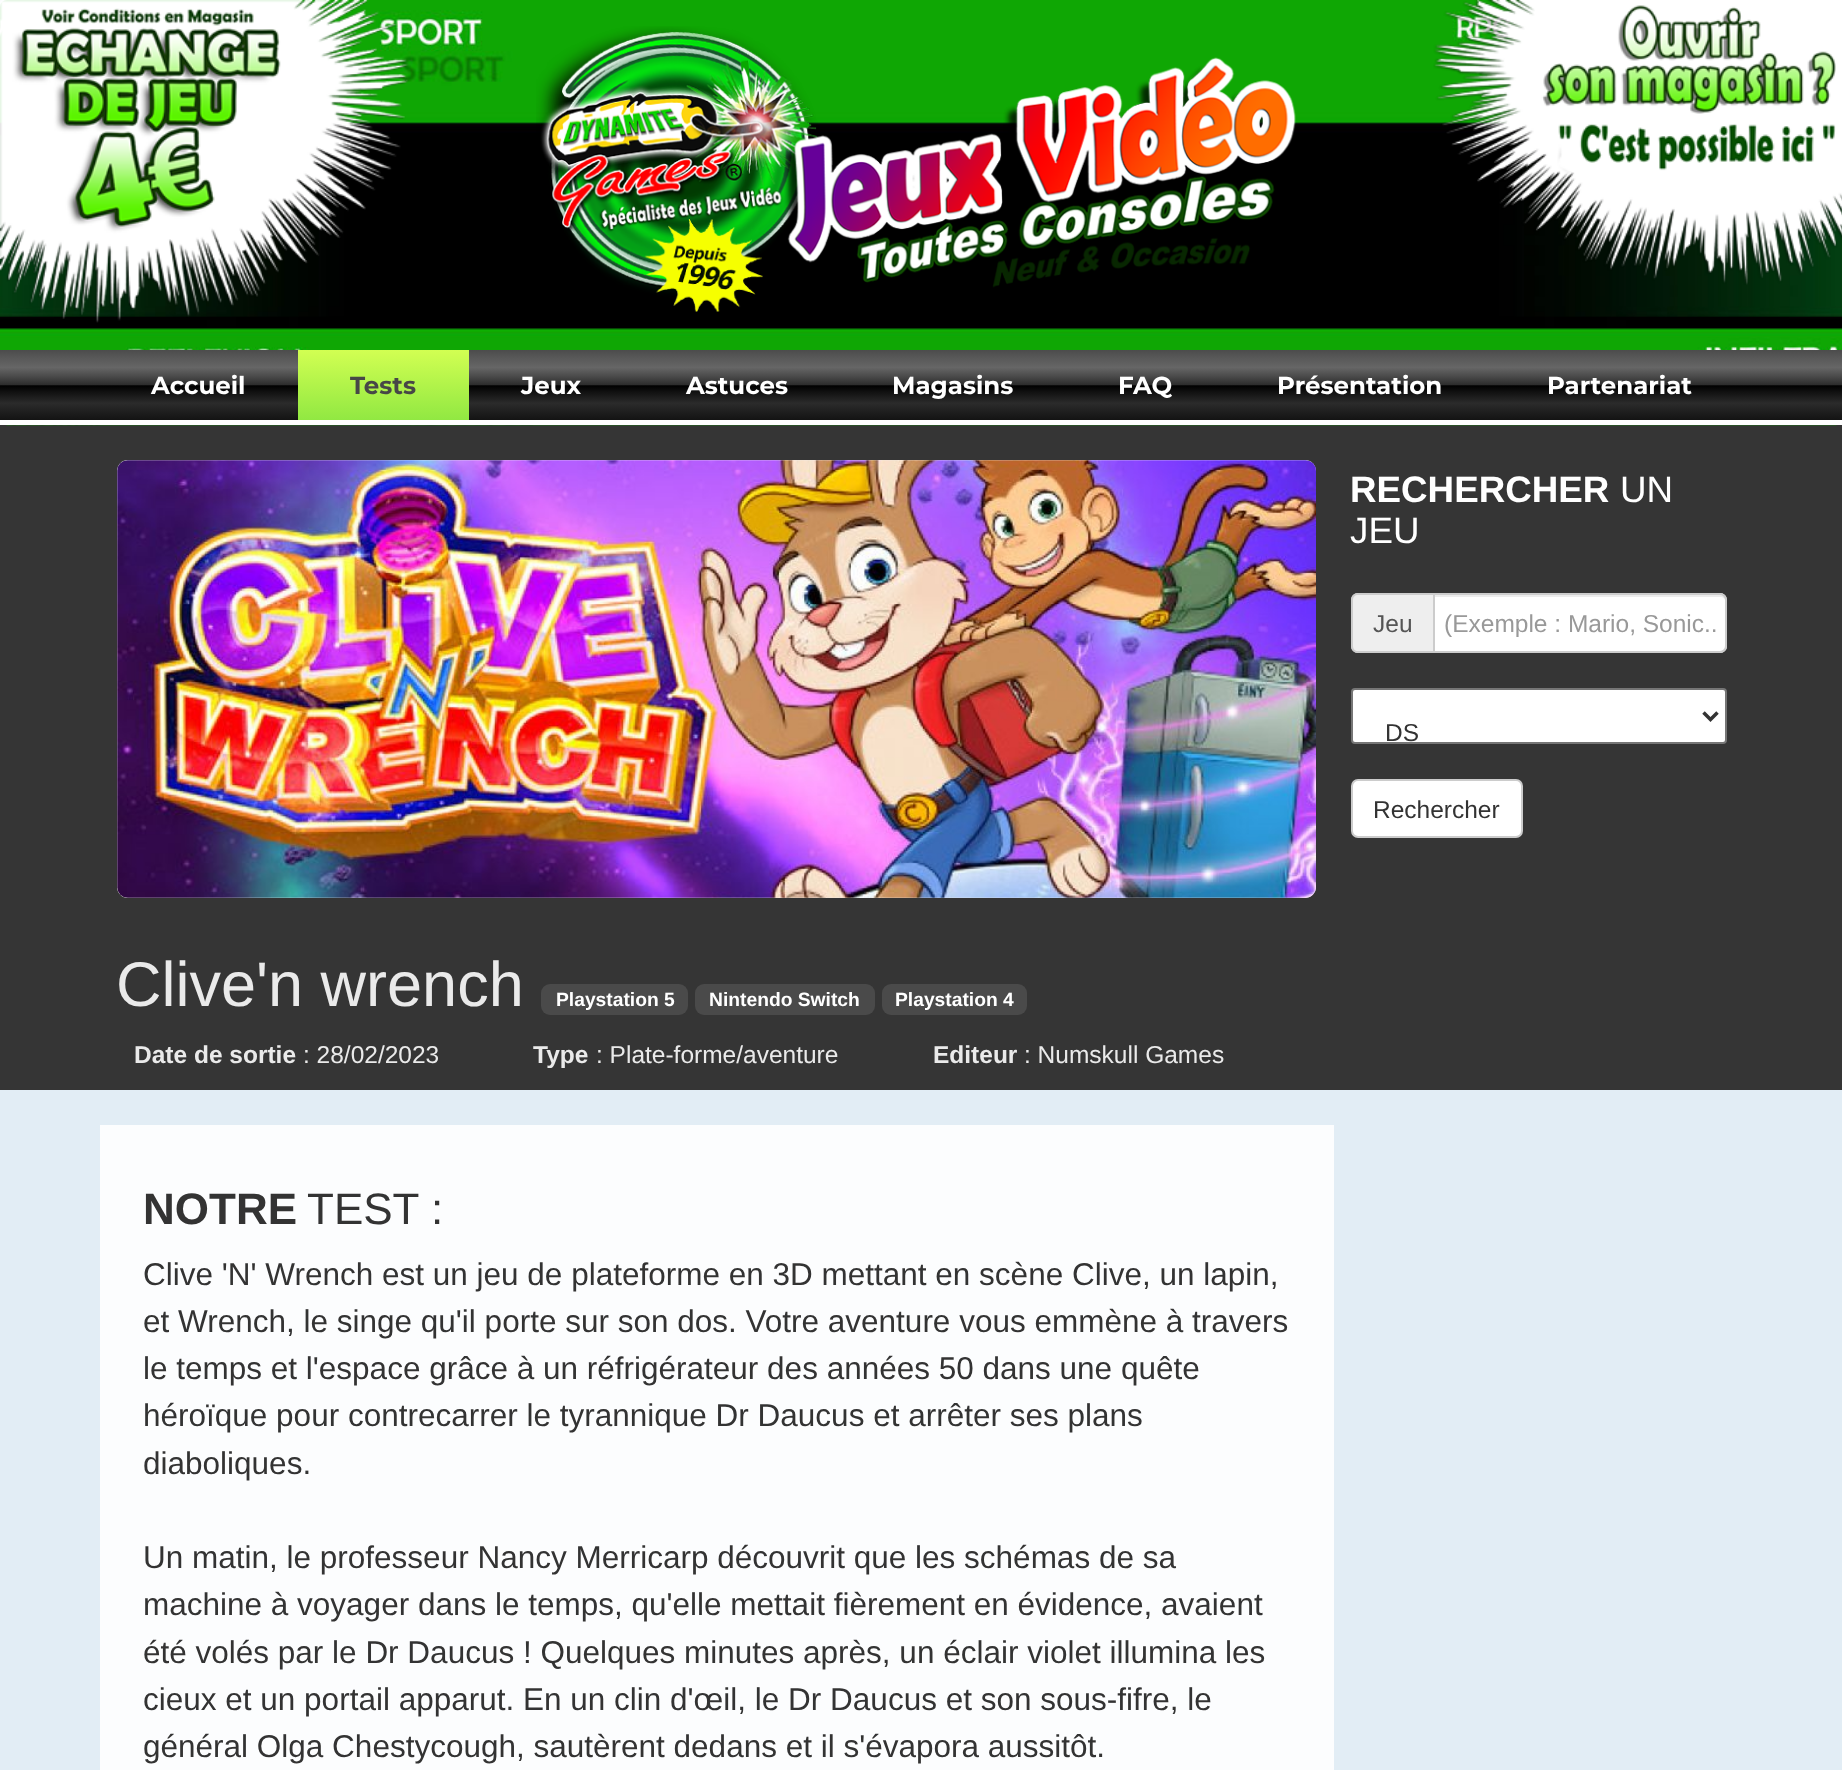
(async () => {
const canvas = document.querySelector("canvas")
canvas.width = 1842
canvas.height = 1770
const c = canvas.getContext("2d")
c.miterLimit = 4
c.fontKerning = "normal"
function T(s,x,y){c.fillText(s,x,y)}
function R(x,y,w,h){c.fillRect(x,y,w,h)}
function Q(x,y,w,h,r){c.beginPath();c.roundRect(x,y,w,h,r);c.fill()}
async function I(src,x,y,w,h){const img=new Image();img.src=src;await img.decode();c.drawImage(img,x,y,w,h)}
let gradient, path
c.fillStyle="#fff"
R(0,0,1842,1770)
gradient = c.createLinearGradient(921,0,921,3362)
gradient.addColorStop(0,"#e2edf5")
gradient.addColorStop(.66,"#e2edf5")
gradient.addColorStop(1,"#82aeff")
c.fillStyle = gradient
R(0,0,1842,1770)
c.fillStyle="#353535"
R(0,425,1842,665)
await I("1.png",0,0,1842,426)
await I("2.png",0,0,408,323)
await I("3.png",536,26,760,286)
await I("4.png",1433,0,409,285)
gradient = c.createLinearGradient(921,350,921,420)
gradient.addColorStop(0,"#4c4c4c")
gradient.addColorStop(.12,"#595959")
gradient.addColorStop(.25,"#666")
gradient.addColorStop(.39,"#474747")
gradient.addColorStop(.5,"#2c2c2c")
gradient.addColorStop(.51,"#000")
gradient.addColorStop(.6,"#111")
gradient.addColorStop(.76,"#2b2b2b")
gradient.addColorStop(.91,"#1c1c1c")
gradient.addColorStop(1,"#131313")
c.fillStyle = gradient
R(0,350,1842,70)
c.fillStyle="#fff"
R(0,420,1842,5)
c.font="bold 24.5px Montserrat"
T("Accueil",151,394)
gradient = c.createLinearGradient(383,350,383,420)
gradient.addColorStop(0,"#d2ff52")
gradient.addColorStop(1,"#91e842")
c.fillStyle = gradient
R(298,350,171,70)
c.fillStyle="#474747"
T("Tests",350,394)
c.fillStyle="#fff"
T("Jeux",521,394)
T("Astuces",686,394)
T("Magasins",892,394)
T("FAQ",1118,394)
T("Présentation",1277,394)
T("Partenariat",1547,394)
c.font="bold 36.75px Liberation Sans"
T("RECHERCHER",1350,502)
c.font="36.75px Liberation Sans"
T("UN",1620,502)
T("JEU",1350,543)
c.fillStyle="#eee"
c.beginPath()
c.roundRect(1351,593,82,60,[7,0,0,7])
c.fill()
c.fillStyle="#ccc"
path = new Path2D("M1358 593h75v60h-75c-4 0-7-3-7-7v-46c0-4 3-7 7-7zm0 2h75v56h-75c-3 0-5-2-5-5v-46c0-3 2-5 5-5z")
c.fill(path,"evenodd")
c.font="24.5px Liberation Sans"
c.fillStyle="#555"
T("Jeu",1373,632)
c.fillStyle="#fff"
c.beginPath()
c.roundRect(1433,593,294,60,[0,7,7,0])
c.fill()
c.fillStyle="#ececec"
path = new Path2D("M1435 597h285c3 0 6 2 6 5c0-3 0-6-4-7h-287z")
c.fill(path)
c.beginPath()
c.roundRect(1434,594,292,58,[0,6,6,0])
c.strokeStyle="#ccc"
c.lineWidth=2
c.stroke()
c.fillStyle="#999"
T("(Exemple : Mario, Sonic..",1444,632)
c.fillStyle="#fff"
c.beginPath()
c.roundRect(1352,689,374,54,3)
c.fill()
c.strokeStyle="#767676"
c.stroke()
path = new Path2D("M1703.5 712.5l7 7l7-7")
c.strokeStyle="#333"
c.lineWidth=3.5
c.stroke(path)
c.fillStyle="#333"
T("DS",1385,741)
c.fillStyle="#fff"
c.beginPath()
c.roundRect(1352,780,170,57,6)
c.fill()
c.strokeStyle="#ccc"
c.lineWidth=2
c.stroke()
c.fillStyle="#333"
T("Rechercher",1373,818)
c.fillStyle="#eee"
Q(117,460,1199,438,11)
await I("5.png",117,460,1199,438)
c.font="63px Liberation Sans"
c.fillStyle="#eaeaea"
T("Clive'n wrench",116,1006)
c.fillStyle="#4a4a4a"
Q(541,984,147,31,9)
c.font="bold 19.25px Liberation Sans"
c.fillStyle="#fff"
T("Playstation 5",556,1006)
c.fillStyle="#4a4a4a"
Q(695,984,180,31,9)
c.fillStyle="#fff"
T("Nintendo Switch",709,1006)
c.fillStyle="#4a4a4a"
Q(882,984,145,31,9)
c.fillStyle="#fff"
T("Playstation 4",895,1006)
c.font="bold 24.5px Liberation Sans"
c.fillStyle="#eaeaea"
T("Date de sortie",134,1063)
c.font="24.5px Liberation Sans"
T(": 28/02/2023",303,1063)
c.font="bold 24.5px Liberation Sans"
T("Type",533,1063)
c.font="24.5px Liberation Sans"
T(": Plate-forme/aventure",596,1063)
c.font="bold 24.5px Liberation Sans"
T("Editeur",933,1063)
c.font="24.5px Liberation Sans"
T(": Numskull Games",1024,1063)
c.fillStyle="#fcfdfe"
R(100,1125,1234,645)
c.font="bold 44px Liberation Sans"
c.fillStyle="#333"
T("NOTRE",143,1224)
c.font="44px Liberation Sans"
T("TEST :",307,1224)
c.font="31.5px Liberation Sans"
T("Clive 'N' Wrench est un jeu de plateforme en 3D mettant en scène Clive, un lapin,",143,1285)
T("et Wrench, le singe qu'il porte sur son dos. Votre aventure vous emmène à travers",143,1332)
T("le temps et l'espace grâce à un réfrigérateur des années 50 dans une quête",143,1379)
T("héroïque pour contrecarrer le tyrannique Dr Daucus et arrêter ses plans",143,1426)
T("diaboliques.",143,1474)
T("Un matin, le professeur Nancy Merricarp découvrit que les schémas de sa",143,1568)
T("machine à voyager dans le temps, qu'elle mettait fièrement en évidence, avaient",143,1615)
T("été volés par le Dr Daucus ! Quelques minutes après, un éclair violet illumina les",143,1663)
T("cieux et un portail apparut. En un clin d'œil, le Dr Daucus et son sous-fifre, le",143,1710)
T("général Olga Chestycough, sautèrent dedans et il s'évapora aussitôt.",143,1757)
})()
